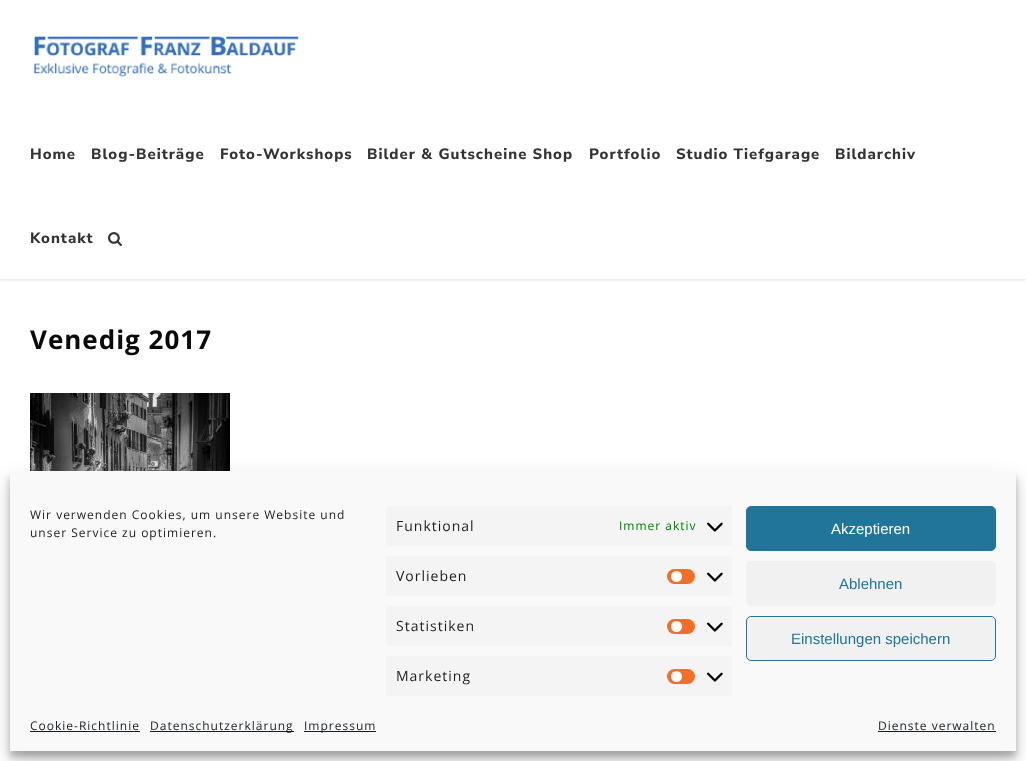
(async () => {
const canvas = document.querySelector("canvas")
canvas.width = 1026
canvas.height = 761
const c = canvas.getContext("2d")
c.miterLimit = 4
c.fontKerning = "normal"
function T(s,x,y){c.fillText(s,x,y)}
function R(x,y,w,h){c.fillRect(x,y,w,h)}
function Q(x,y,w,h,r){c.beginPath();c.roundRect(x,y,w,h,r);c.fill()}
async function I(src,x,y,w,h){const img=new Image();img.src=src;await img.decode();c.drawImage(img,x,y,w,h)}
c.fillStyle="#fff"
R(0,0,1026,761)
c.fillStyle="#0000001f"
c.filter="blur(1.5px)"
c.beginPath()
c.rect(0,1,1026,279)
c.fill()
c.filter="none"
c.fillStyle="#fff"
R(0,0,1026,279)
await I("1.png",33,36,266,41)
c.letterSpacing="1px"
c.font="200 15px Nunito Sans"
c.fillStyle="#333"
T("Home",30,159)
T("Blog-Beiträge",91,159)
T("Foto-Workshops",220,159)
T("Bilder & Gutscheine Shop",367,159)
T("Portfolio",589,159)
T("Studio Tiefgarage",676,159)
T("Bildarchiv",835,159)
T("Kontakt",30,243)
await I("2.png",108,232,14,14)
c.font="bold 26px Open Sans"
c.fillStyle="#0a0a0a"
T("Venedig 2017",30,349)
await I("3.png",30,393,200,78)
c.fillStyle="#0000003b"
c.filter="blur(3px)"
c.beginPath()
c.rect(10,477,1006,280)
c.fill()
c.filter="none"
c.fillStyle="#00000030"
c.filter="blur(10px)"
c.beginPath()
c.rect(10,481,1006,280)
c.fill()
c.filter="none"
c.fillStyle="#f9f9f9"
R(10,471,1006,280)
c.font="12px Open Sans"
c.fillStyle="#191e23"
T("Wir verwenden Cookies, um unsere Website und",30,519)
T("unser Service zu optimieren.",30,537)
c.fillStyle="#f4f4f4"
R(386,506,346,40)
c.font="14px Open Sans"
c.fillStyle="#191e23"
T("Funktional",396,531)
c.font="12px Open Sans"
c.fillStyle="#008000"
T("Immer aktiv",619,530)
await I("4.png",707,522,16,10)
c.fillStyle="#f4f4f4"
R(386,556,346,40)
c.font="14px Open Sans"
c.fillStyle="#191e23"
T("Vorlieben",396,581)
c.fillStyle="#f56e28"
Q(667,569,28,15,7.5)
c.fillStyle="#fff"
c.beginPath()
c.arc(676.5,576.5,5.5,0,7)
c.fill()
await I("4.png",707,572,16,10)
c.fillStyle="#f4f4f4"
R(386,606,346,40)
c.fillStyle="#191e23"
T("Statistiken",396,631)
c.fillStyle="#f56e28"
Q(667,619,28,15,7.5)
c.fillStyle="#fff"
c.beginPath()
c.arc(676.5,626.5,5.5,0,7)
c.fill()
await I("4.png",707,622,16,10)
c.fillStyle="#f4f4f4"
R(386,656,346,40)
c.fillStyle="#191e23"
T("Marketing",396,681)
c.fillStyle="#f56e28"
Q(667,669,28,15,7.5)
c.fillStyle="#fff"
c.beginPath()
c.arc(676.5,676.5,5.5,0,7)
c.fill()
await I("4.png",707,672,16,10)
c.fillStyle="#21759b"
c.beginPath()
c.roundRect(746.5,506.5,249,44,4.5)
c.fill()
c.strokeStyle="#21759b"
c.stroke()
c.letterSpacing="0px"
c.font="15px Liberation Sans"
c.fillStyle="#fff"
T("Akzeptieren",831,534)
c.fillStyle="#f1f1f1"
Q(746,561,250,45,5)
c.fillStyle="#21759b"
T("Ablehnen",839,589)
c.fillStyle="#f1f1f1"
c.beginPath()
c.roundRect(746.5,616.5,249,44,4.5)
c.fill()
c.stroke()
c.fillStyle="#21759b"
T("Einstellungen speichern",791,644)
c.letterSpacing="1px"
c.font="12px Open Sans"
c.fillStyle="#191e23"
T("Cookie-Richtlinie",30,730)
R(30,731,110,1)
R(150,731,144,1)
T("Datenschutzerklärung",150,730)
R(304,731,72,1)
T("Impressum",304,730)
T("Dienste verwalten",878,730)
R(878,731,118,1)
})()
